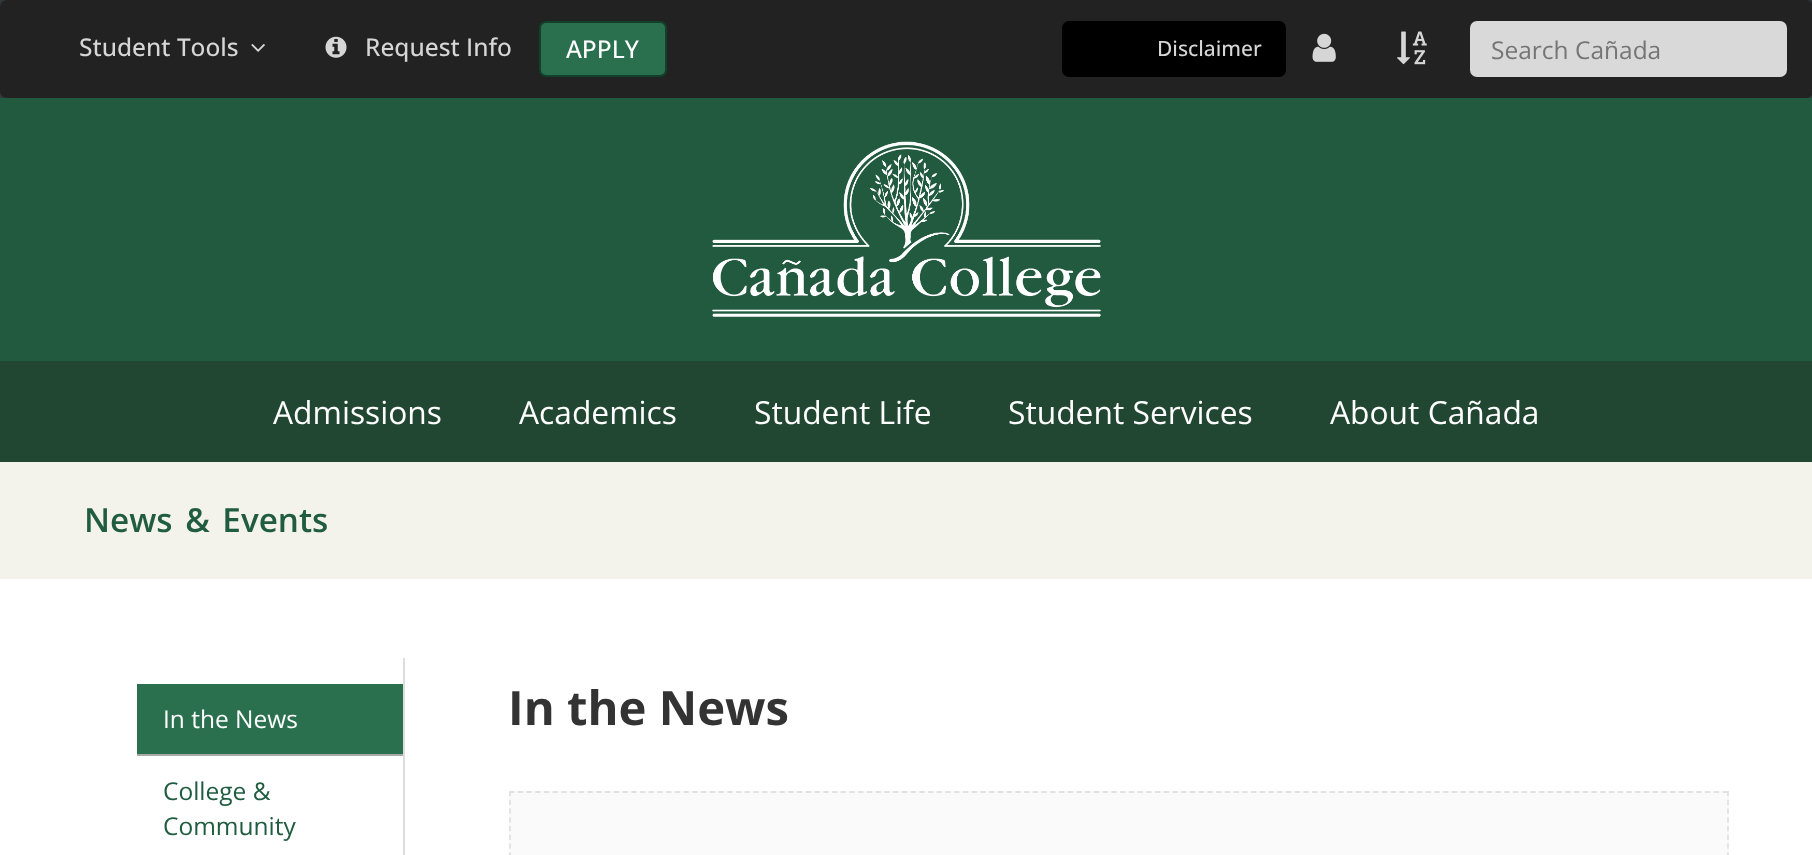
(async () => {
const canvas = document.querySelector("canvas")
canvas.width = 1812
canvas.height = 855
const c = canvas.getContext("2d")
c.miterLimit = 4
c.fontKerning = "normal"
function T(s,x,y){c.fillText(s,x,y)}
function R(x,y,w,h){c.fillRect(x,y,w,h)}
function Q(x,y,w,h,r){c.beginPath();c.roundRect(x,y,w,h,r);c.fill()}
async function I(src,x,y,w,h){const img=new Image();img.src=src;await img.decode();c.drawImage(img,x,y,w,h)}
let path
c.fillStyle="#fff"
R(0,0,1812,855)
c.fillStyle="#30393a"
R(0,0,1812,98)
c.fillStyle="#222"
Q(0,0,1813,98,7)
c.font="500 24.5px Open Sans"
c.fillStyle="#d6d6d6"
T("Student Tools",79,56)
await I("1.png",251,44,14,8)
await I("2.png",325,36,22,22)
T("Request Info",365,56)
c.fillStyle="#2a704e"
c.beginPath()
c.roundRect(540,22,126,54,6)
c.fill()
c.strokeStyle="#12402a"
c.lineWidth=2
c.stroke()
c.fillStyle="#fff"
T("APPLY",566,58)
c.fillStyle="#000"
Q(1062,21,224,56,7)
c.font="500 21px Open Sans"
c.fillStyle="#d6d6d6"
T("Disclaimer",1157,56)
await I("3.png",1312,33,24,29)
await I("4.png",1397,31,30,34)
c.fillStyle="#d9d9d9"
Q(1470,21,317,56,7)
c.font="24.5px Open Sans"
c.fillStyle="#757575"
T("Search Cañada",1491,59)
c.fillStyle="#225a3f"
R(0,98,1812,263)
await I("5.png",712,141,389,176)
c.fillStyle="#214732"
R(0,361,1812,101)
c.font="31.75px Open Sans"
c.fillStyle="#fff"
T("Admissions",273,424)
T("Academics",519,424)
T("Student Life",754,424)
T("Student Services",1008,424)
T("About Cañada",1330,424)
c.fillStyle="#f3f2eb"
R(0,462,1812,117)
c.wordSpacing="4px"
c.font="600 33.25px Open Sans"
c.fillStyle="#205c40"
T("News & Events",84,532)
c.fillStyle="#ddd"
R(403,658,2,197)
c.fillStyle="#a9a9a9"
R(137,754,266,2)
c.fillStyle="#2a704e"
R(137,684,266,70)
c.wordSpacing="0px"
c.font="24.5px Open Sans"
c.fillStyle="#fff"
T("In the News",163,728)
c.fillStyle="#205c40"
T("College &",163,800)
T("Community",163,835)
c.font="bold 47.25px Open Sans"
c.fillStyle="#333"
T("In the News",508,725)
c.fillStyle="#fafafa"
R(509,791,1220,64)
path = new Path2D("M509 792h1220")
c.strokeStyle="#e1e1e1"
c.lineWidth=1.8
c.setLineDash([5.25,3.48])
c.stroke(path)
path = new Path2D("M1728 791v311.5")
c.setLineDash([5.25,3.5])
c.stroke(path)
path = new Path2D("M510 791v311.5")
c.stroke(path)
})()
